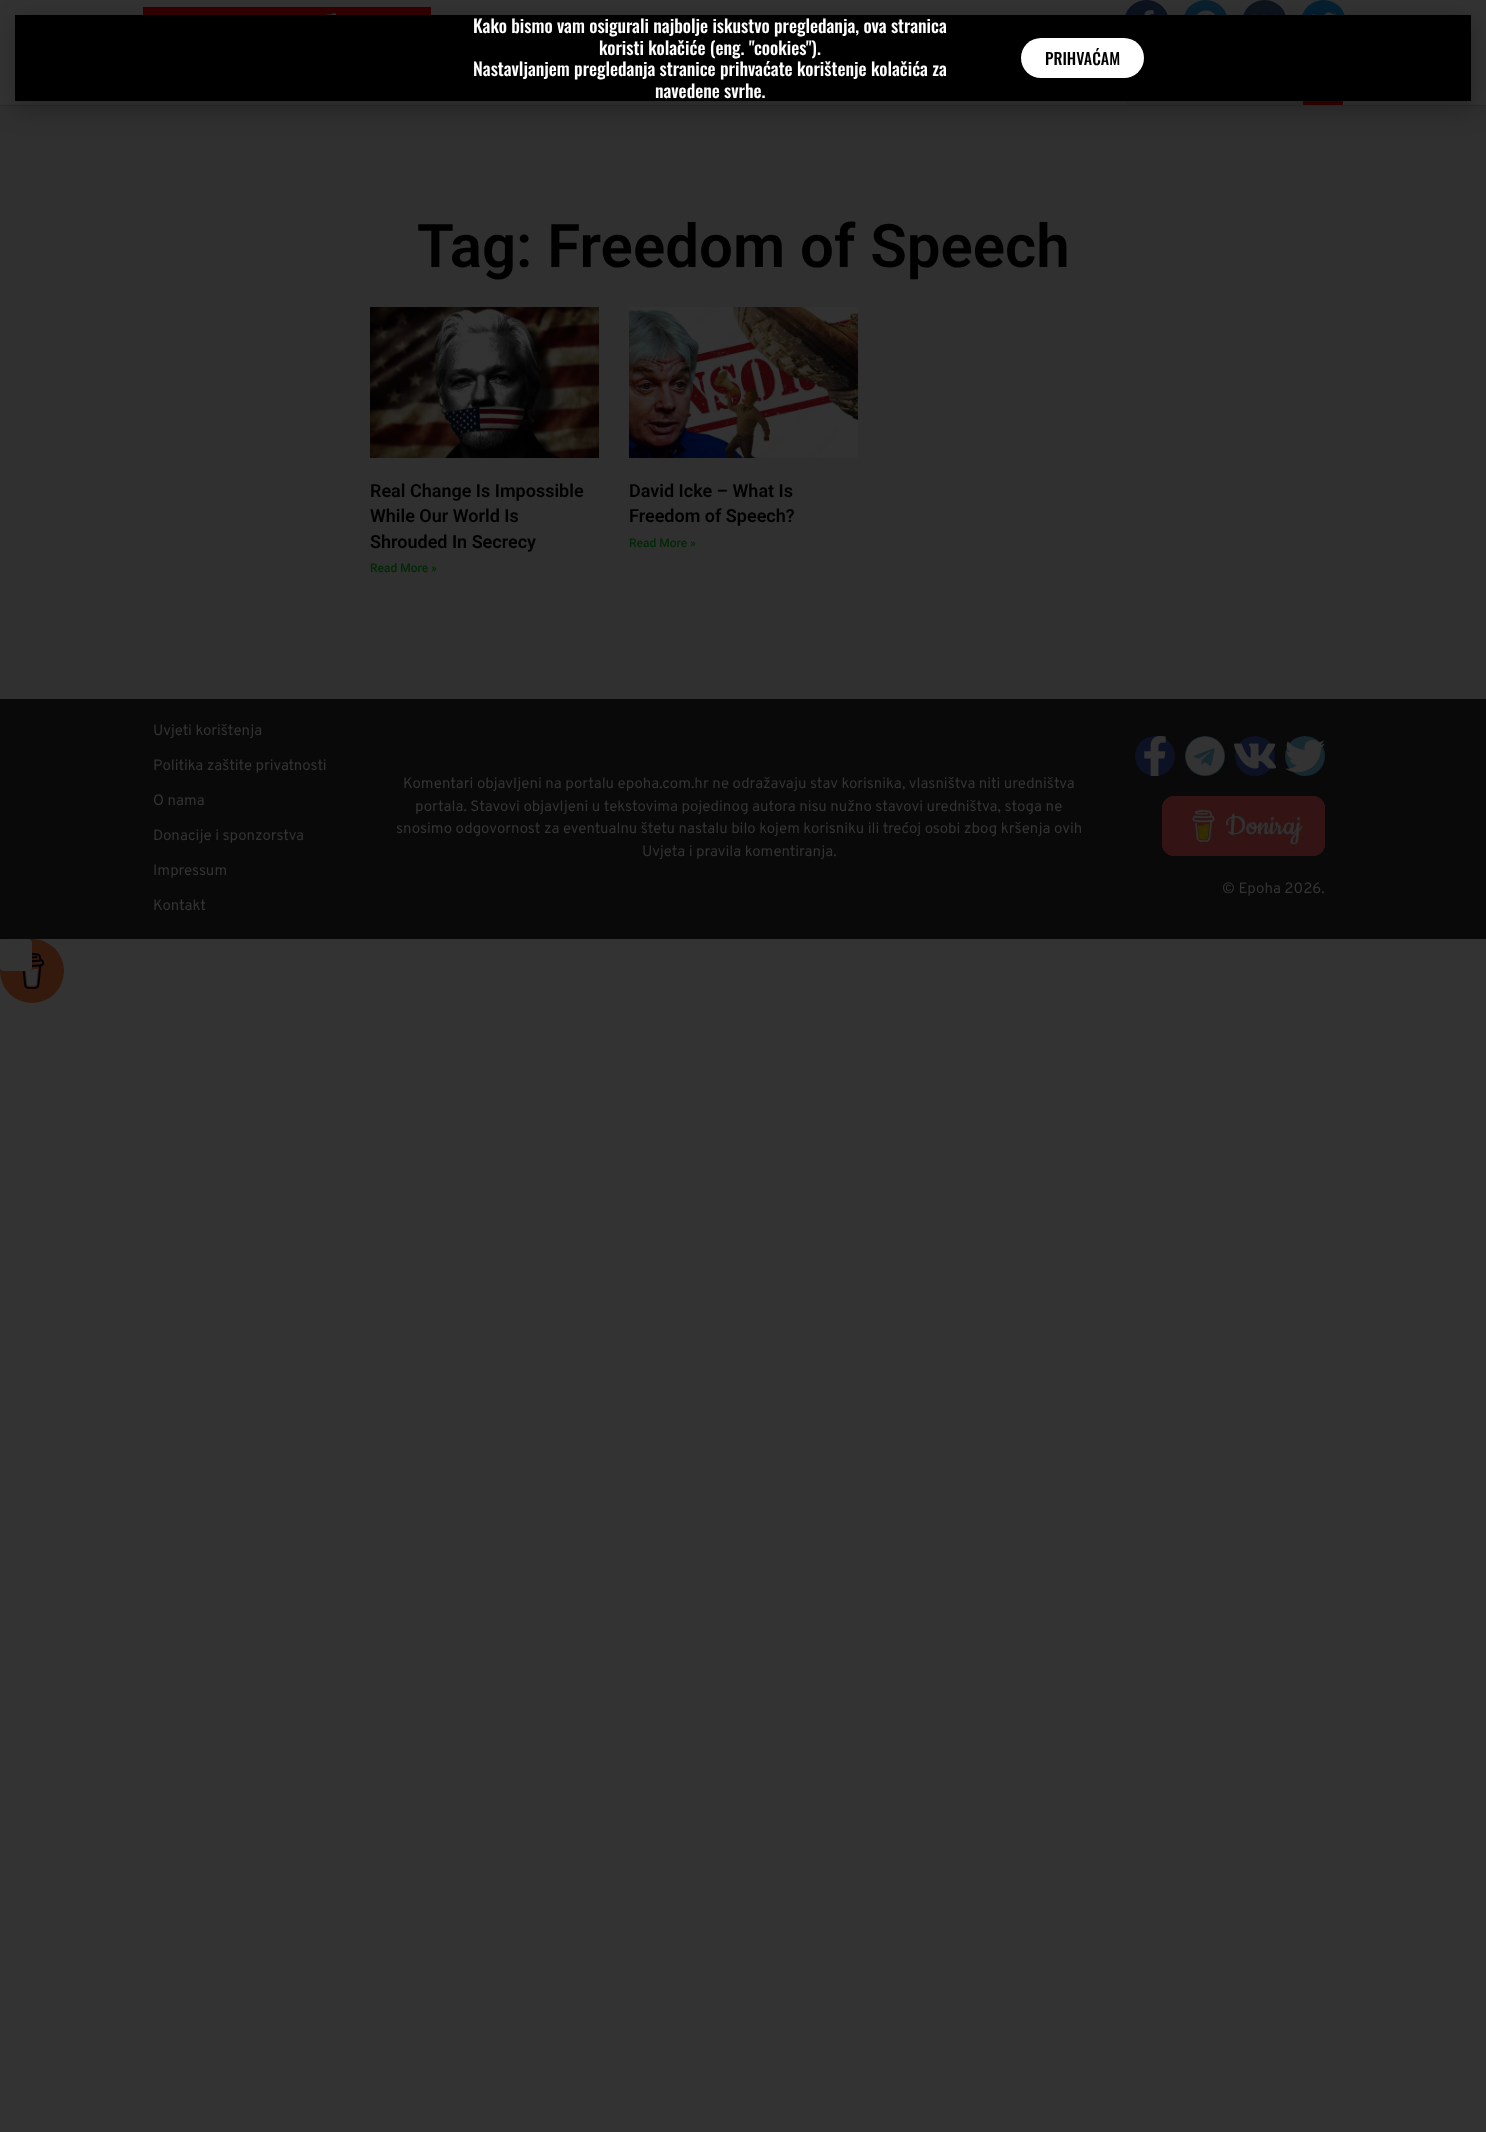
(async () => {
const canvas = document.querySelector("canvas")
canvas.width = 1486
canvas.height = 2132
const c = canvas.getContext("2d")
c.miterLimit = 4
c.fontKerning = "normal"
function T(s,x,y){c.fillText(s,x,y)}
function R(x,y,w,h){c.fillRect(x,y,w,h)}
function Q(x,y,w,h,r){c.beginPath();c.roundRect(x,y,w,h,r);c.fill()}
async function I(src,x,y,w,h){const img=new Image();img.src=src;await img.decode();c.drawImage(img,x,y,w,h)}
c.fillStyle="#333"
R(0,0,1486,2132)
c.fillStyle="#2a2a2a"
R(0,105,1486,1)
await I("1.png",143,7,288,8)
c.fillStyle="#0c121e"
c.beginPath()
c.arc(1146.5,22.5,22.5,0,7)
c.fill()
await I("2.png",1144,10,10,5)
c.fillStyle="#09212d"
c.beginPath()
c.arc(1205.5,22.5,22.5,0,7)
c.fill()
await I("3.png",1196,10,20,5)
c.fillStyle="#0e141c"
c.beginPath()
c.arc(1264.5,22.5,22.5,0,7)
c.fill()
await I("4.png",1252,14,26,1)
c.fillStyle="#062030"
c.beginPath()
c.arc(1323.5,22.5,22.5,0,7)
c.fill()
await I("5.png",1312,12,24,3)
c.fillStyle="#303031"
Q(1127,65,216,40,1)
c.fillStyle="#300"
c.beginPath()
c.roundRect(1303,65,40,40,[0,1,1,0])
c.fill()
c.fillStyle="#303030"
R(0,106,1486,593)
c.fillStyle="#00000033"
c.filter="blur(11.5px)"
c.beginPath()
c.rect(14,20,1462,92)
c.fill()
c.filter="none"
c.fillStyle="#000"
R(15,15,1456,86)
c.font="500 18px Oswald"
c.fillStyle="#fff"
T("Kako bismo vam osigurali najbolje iskustvo pregledanja, ova stranica",473,33)
T("koristi kolačiće (eng. \"cookies\").",599,55)
T("Nastavljanjem pregledanja stranice prihvaćate korištenje kolačića za",473,76)
T("navedene svrhe.",655,98)
Q(1021,38,123,40,20)
c.font="500 16px Oswald"
c.fillStyle="#000"
T("PRIHVAĆAM",1045,65)
c.font="600 60px Roboto"
T("Tag: Freedom of Speech",417,267)
await I("6.png",370,307,229,151)
c.font="600 18px Roboto"
T("Real Change Is Impossible",370,497)
T("While Our World Is",370,522)
T("Shrouded In Secrecy",370,548)
c.font="500 12px Roboto"
c.fillStyle="#002905"
T("Read More »",370,572)
await I("7.png",629,307,229,151)
c.font="600 18px Roboto"
c.fillStyle="#000"
T("David Icke – What Is",629,497)
T("Freedom of Speech?",629,522)
c.font="500 12px Roboto"
c.fillStyle="#002905"
T("Read More »",629,547)
c.fillStyle="#090909"
R(0,699,1486,240)
c.font="15px Overpass"
c.fillStyle="#333"
T("Uvjeti korištenja",153,735)
T("Politika zaštite privatnosti",153,770)
T("O nama",153,805)
T("Donacije i sponzorstva",153,840)
T("Impressum",153,875)
T("Kontakt",153,910)
T("Komentari objavljeni na portalu epoha.com.hr ne odražavaju stav korisnika, vlasništva niti uredništva",403,788)
T("portala. Stavovi objavljeni u tekstovima pojedinog autora nisu nužno stavovi uredništva, stoga ne",415,811)
T("snosimo odgovornost za eventualnu štetu nastalu bilo kojem korisniku ili trećoj osobi zbog kršenja ovih",396,833)
T("Uvjeta i pravila komentiranja.",642,856)
c.fillStyle="#0d1124"
c.beginPath()
c.arc(1155,756,20,0,7)
c.fill()
await I("8.png",1144,736,22,40)
c.fillStyle="#16272e"
c.beginPath()
c.arc(1205,756,20,0,7)
c.fill()
await I("9.png",1185,736,40,40)
c.fillStyle="#0d1124"
c.beginPath()
c.arc(1255,756,20,0,7)
c.fill()
await I("10.png",1234,743,42,26)
c.fillStyle="#16272e"
c.beginPath()
c.arc(1305,756,20,0,7)
c.fill()
await I("11.png",1285,739,40,34)
await I("12.png",1162,796,163,60)
c.fillStyle="#333"
T("© Epoha 2026.",1222,893)
c.fillStyle="#331a0d"
c.beginPath()
c.arc(32,971,32,0,7)
c.fill()
await I("13.png",22,953,23,36)
c.fillStyle="#333"
Q(0,939,32,32,4)
})()
